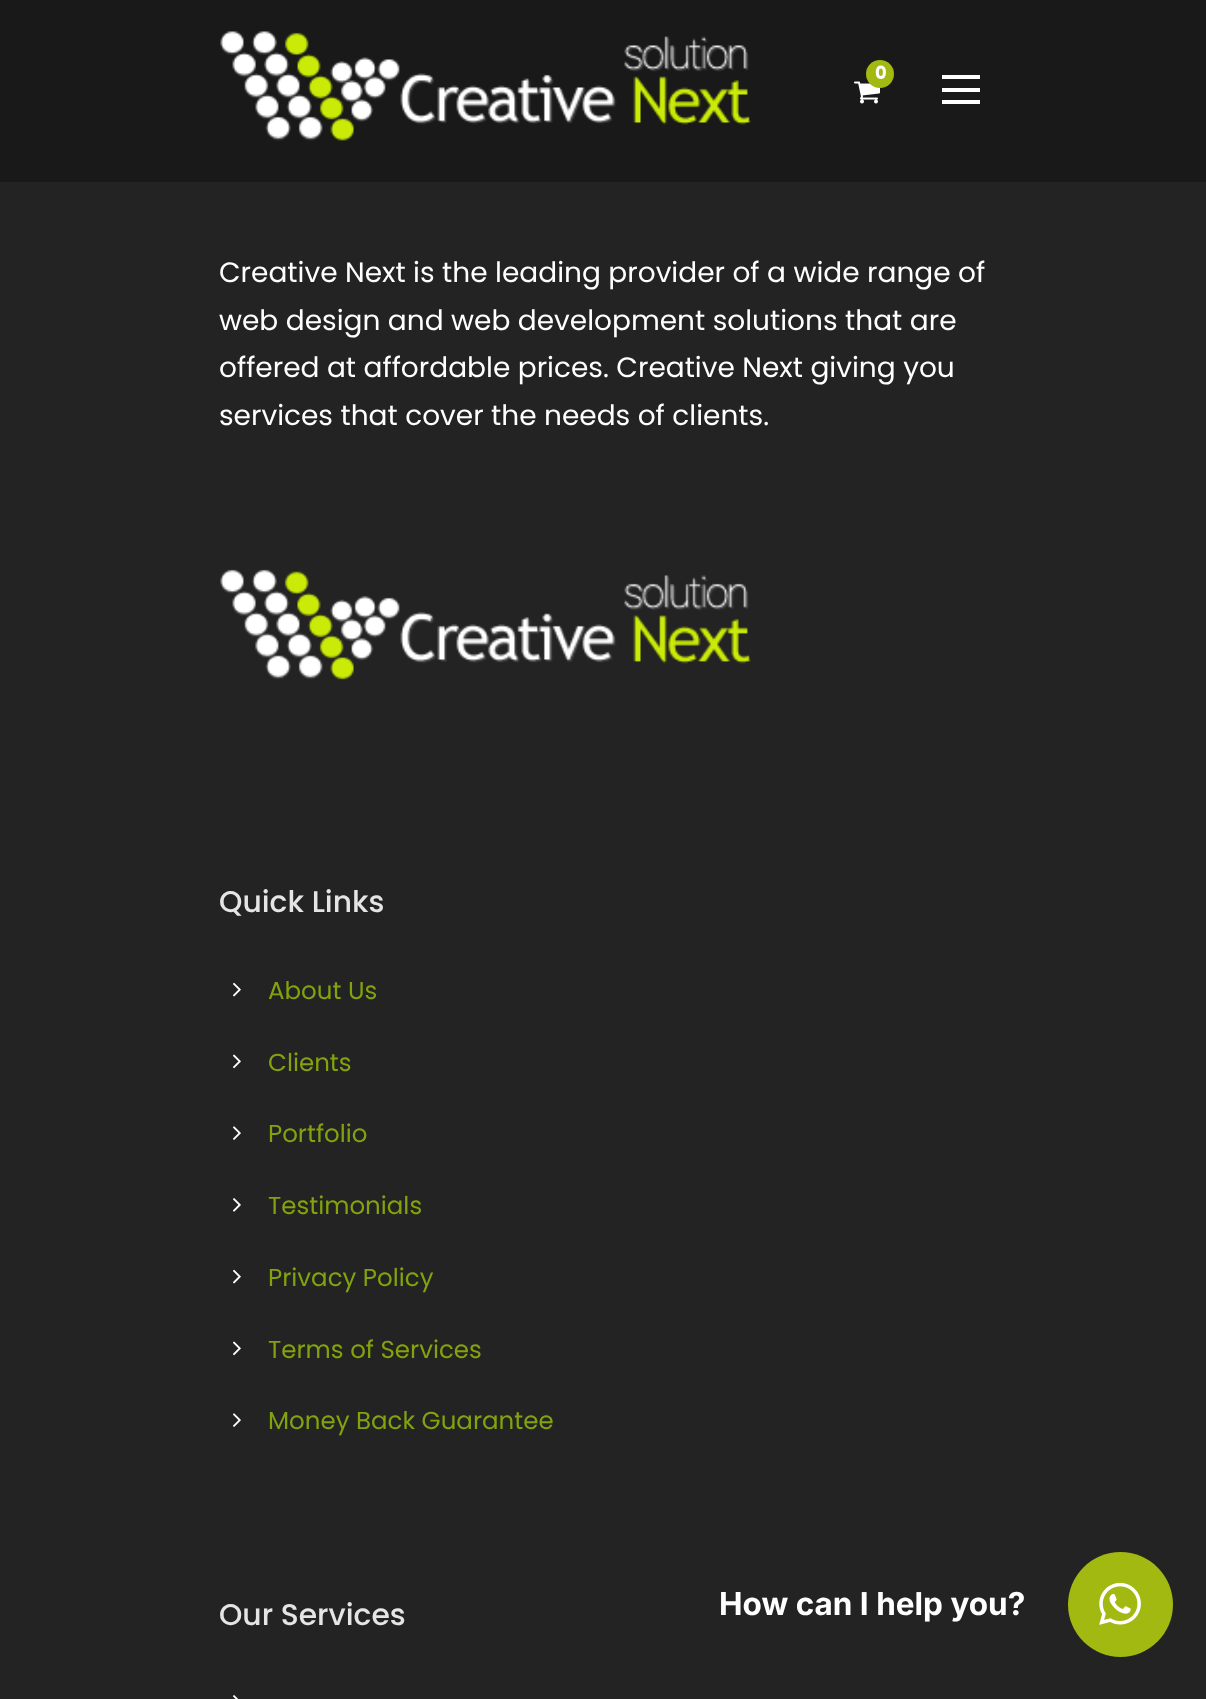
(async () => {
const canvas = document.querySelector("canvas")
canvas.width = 1206
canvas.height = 1699
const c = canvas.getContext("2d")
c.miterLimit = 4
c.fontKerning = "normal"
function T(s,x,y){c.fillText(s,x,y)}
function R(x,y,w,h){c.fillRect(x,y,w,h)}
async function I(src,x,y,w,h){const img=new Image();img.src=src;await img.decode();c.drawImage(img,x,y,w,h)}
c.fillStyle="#232323"
R(0,0,1206,1699)
c.fillStyle="#191919"
R(0,0,1206,182)
await I("1.png",220,31,531,110)
await I("2.png",854,81,26,23)
c.fillStyle="#a1b911"
c.beginPath()
c.arc(880,74,14,0,7)
c.fill()
c.font="bold 18px Poppins"
c.fillStyle="#fff"
T("0",875,79)
R(942,75,38,4)
R(942,88,38,4)
R(942,100,38,4)
c.font="28px Poppins"
T("Creative Next is the leading provider of a wide range of",219,282)
T("web design and web development solutions that are",219,330)
T("offered at affordable prices. Creative Next giving you",219,377)
T("services that cover the needs of clients.",219,425)
await I("3.png",220,569,531,111)
c.font="500 29.75px Poppins"
c.fillStyle="#e5e5e5"
T("Quick Links",219,912)
await I("4.png",233,982,8,15)
c.font="24.5px Poppins"
c.fillStyle="#82a30d"
T("About Us",268,999)
await I("5.png",233,1054,8,15)
T("Clients",268,1071)
await I("6.png",233,1126,8,14)
T("Portfolio",268,1142)
await I("7.png",233,1198,8,14)
T("Testimonials",268,1214)
await I("4.png",233,1269,8,15)
T("Privacy Policy",268,1286)
await I("5.png",233,1341,8,15)
T("Terms of Services",268,1358)
await I("6.png",233,1413,8,14)
T("Money Back Guarantee",268,1429)
c.font="500 29.75px Poppins"
c.fillStyle="#e5e5e5"
T("Our Services",219,1625)
await I("8.png",233,1695,5,4)
c.fillStyle="#a1b911"
c.beginPath()
c.arc(1120.5,1604.5,52.5,0,7)
c.fill()
c.font="bold 31.5px Inter"
c.fillStyle="#fff"
T("How can I help you?",719,1615)
await I("9.png",1099,1582,42,43)
})()
